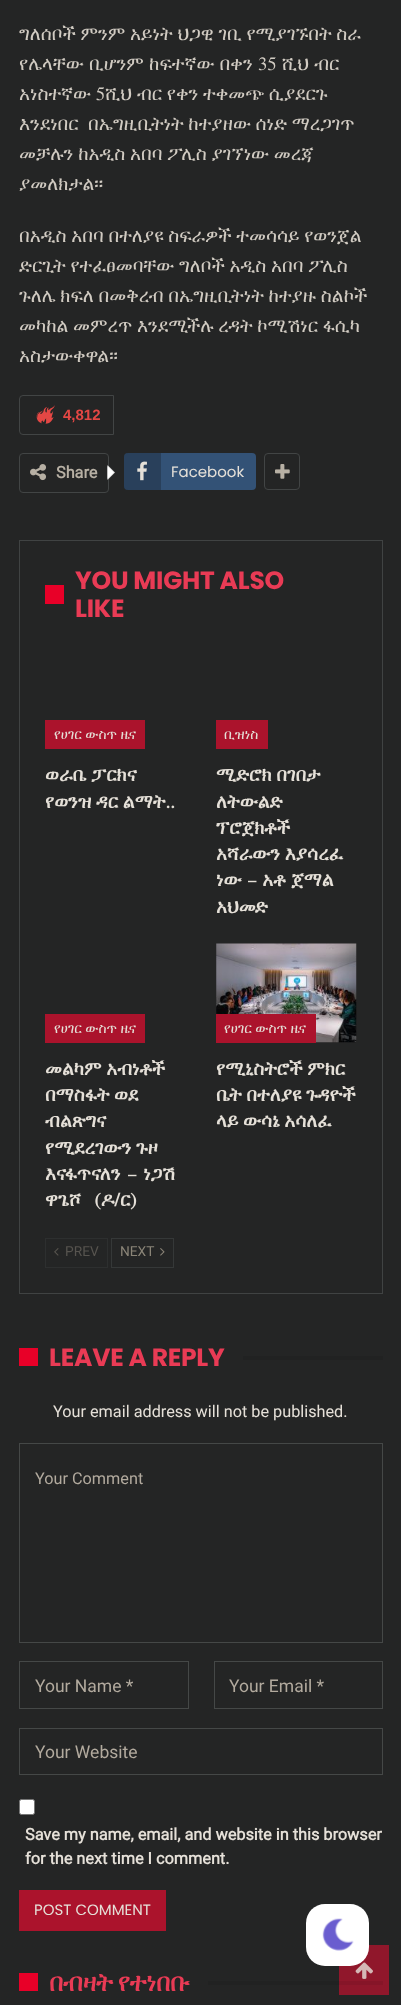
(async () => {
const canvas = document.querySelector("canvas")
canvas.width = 401
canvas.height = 2005
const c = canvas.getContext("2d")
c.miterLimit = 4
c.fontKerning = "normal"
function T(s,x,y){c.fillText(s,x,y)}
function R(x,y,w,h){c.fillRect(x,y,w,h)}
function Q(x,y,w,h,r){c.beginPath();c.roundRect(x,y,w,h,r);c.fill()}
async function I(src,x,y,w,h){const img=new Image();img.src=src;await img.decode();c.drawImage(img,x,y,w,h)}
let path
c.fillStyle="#242525"
R(0,0,401,2005)
c.fillStyle="#212222"
R(208,1981,131,4)
c.font="18.75px FreeSerif"
c.fillStyle="#d1cbc2"
T("ግለሰቦች ምንም አይነት ህጋዊ ገቢ የሚያገኙበት ስራ",19,40)
c.wordSpacing="0.5px"
T("የሌላቸው ቢሆንም ከፍተኛው በቀን 35 ሺህ ብር",19,70)
c.wordSpacing="0px"
T("አነስተኛው 5ሺህ ብር የቀን ተቀመጭ ሲያደርጉ",19,100)
T("እንደነበር  በኤግዚቢትነት ከተያዘው ሰነድ ማረጋገጥ",19,130)
T("መቻሉን ከአዲስ አበባ ፖሊስ ያገኘነው መረጃ",19,160)
T("ያመለክታል፡፡",19,190)
T("በአዲስ አበባ በተለያዩ ስፍራዎች ተመሳሳይ የወንጀል",19,242)
T("ድርጊት የተፈፀመባቸው ግለቦች አዲስ አበባ ፖሊስ",19,272)
T("ጉለሌ ክፍለ በመቅረብ በኤግዚቢትነት ከተያዙ ስልኮች",19,302)
T("መካከል መምረጥ እንደሚችሉ ረዳት ኮሚሽነር ፋሲካ",19,332)
T("አስታውቀዋል፡፡",19,362)
c.beginPath()
c.roundRect(19.5,395.5,94,39,[3.5,0,0,3.5])
c.strokeStyle="#424545"
c.stroke()
await I("1.png",36,405,19,19)
c.font="bold 15px Liberation Sans"
c.fillStyle="#e44744"
T("4,812",63,420)
c.beginPath()
c.roundRect(19.5,453.5,89,39,3.5)
c.stroke()
await I("2.png",30,464,17,17)
c.font="bold 16.25px Roboto"
c.fillStyle="#b7b0a4"
T("Share",56,478)
c.fillStyle="#d7d7d7"
path = new Path2D("M107.5 480v-15l7.5 7.5z")
c.fill(path)
c.fillStyle="#fff"
path = new Path2D("M107.5 479v-13l6.5 6.5z")
c.fill(path)
c.fillStyle="#335276"
Q(124,453,132,37,4)
c.fillStyle="#0d0d0d40"
c.beginPath()
c.roundRect(124,453,37,37,[4,0,0,4])
c.fill()
await I("3.png",137,461,10,20)
c.font="15px Poppins"
c.fillStyle="#e5e0d8"
T("Facebook",171,477)
c.beginPath()
c.roundRect(264.5,453.5,35,36,3.5)
c.stroke()
await I("4.png",275,464,15,15)
c.strokeStyle="#404343"
c.strokeRect(19.5,540.5,363,753)
c.letterSpacing="-0.25px"
c.font="bold 25px Poppins"
c.fillStyle="#e93b55"
T("YOU MIGHT ALSO",75,589)
c.fillStyle="#e80028"
R(45,585,19,19)
c.fillStyle="#e93b55"
T("LIKE",75,617)
c.fillStyle="#ab132c"
R(45,720,100,29)
c.letterSpacing="0px"
c.font="13.75px FreeSerif"
c.fillStyle="#e5e0d8"
T("የሀገር ውስጥ ዜና",54,739)
c.font="bold 18.75px FreeSerif"
T("ወራቤ ፓርክና",45,781)
T("የወንዝ ዳር ልማት..",45,808)
c.fillStyle="#ab132c"
R(216,720,52,29)
c.font="13.75px FreeSerif"
c.fillStyle="#e5e0d8"
T("ቢዝነስ",224,739)
c.font="bold 18.75px FreeSerif"
T("ሚድሮክ በገበታ",216,781)
T("ለትውልድ",216,808)
T("ፕሮጀክቶች",216,834)
T("አሻራውን እያሳረፈ",216,860)
c.wordSpacing="1px"
T("ነው – አቶ ጀማል",216,886)
c.wordSpacing="0px"
T("አህመድ",216,913)
c.fillStyle="#ab132c"
R(45,1014,100,29)
c.font="13.75px FreeSerif"
c.fillStyle="#e5e0d8"
T("የሀገር ውስጥ ዜና",54,1033)
c.font="bold 18.75px FreeSerif"
T("መልካም አብነቶች",45,1075)
T("በማስፋት ወደ",45,1101)
T("ብልጽግና",45,1127)
T("የሚደረገውን ጉዞ",45,1154)
c.wordSpacing="2px"
T("እናፋጥናለን – ነጋሽ",45,1180)
c.wordSpacing="9px"
T("ዋጌሾ (ዶ/ር)",45,1206)
await I("5.png",216,943,141,100)
c.fillStyle="#ab132c"
R(216,1014,100,29)
c.wordSpacing="0px"
c.font="13.75px FreeSerif"
c.fillStyle="#e5e0d8"
T("የሀገር ውስጥ ዜና",224,1033)
c.font="bold 18.75px FreeSerif"
T("የሚኒስትሮች ምክር",216,1075)
T("ቤት በተለያዩ ጉዳዮች",216,1101)
T("ላይ ውሳኔ አሳለፈ",216,1127)
c.strokeStyle="#2d2f2f"
c.strokeRect(45.5,1238.5,62,29)
await I("6.png",54,1248,5,8)
c.font="13.75px Roboto"
c.fillStyle="#57544f"
T("PREV",65,1256)
c.strokeStyle="#353838"
c.strokeRect(111.5,1238.5,62,29)
c.fillStyle="#8a8477"
T("NEXT",120,1256)
await I("7.png",160,1248,5,8)
c.fillStyle="#e80028"
R(19,1348,19,18)
c.letterSpacing="-0.25px"
c.font="bold 25px Poppins"
c.fillStyle="#e93b55"
T("LEAVE A REPLY",49,1366)
c.fillStyle="#212222"
R(243,1356,140,4)
c.letterSpacing="0px"
c.font="16.25px Roboto"
c.fillStyle="#e5e0d8"
T("Your email address will not be published.",53,1417)
c.strokeStyle="#454847"
c.strokeRect(19.5,1443.5,363,199)
c.fillStyle="#b2aa9e"
T("Your Comment",35,1484)
c.strokeRect(19.5,1661.5,169,47)
c.font="17.5px Roboto"
T("Your Name *",35,1692)
c.strokeRect(214.5,1661.5,168,47)
T("Your Email *",229,1692)
c.strokeRect(19.5,1728.5,363,46)
T("Your Website",35,1758)
c.fillStyle="#fff"
c.beginPath()
c.roundRect(19.5,1799.5,15,15,2)
c.fill()
c.strokeStyle="#767676"
c.stroke()
c.font="bold 16.25px Roboto"
c.fillStyle="#e5e0d8"
T("Save my name, email, and website in this browser",25,1840)
T("for the next time I comment.",25,1864)
c.fillStyle="#ab132c"
R(19,1890,147,41)
c.font="15px Poppins"
c.fillStyle="#e5e0d8"
T("POST COMMENT",34,1915)
c.fillStyle="#e80028"
R(19,1973,19,18)
c.letterSpacing="-0.25px"
c.wordSpacing="-1px"
c.font="bold 25px FreeSerif"
c.fillStyle="#e93b55"
T("በብዛት የተነበቡ",49,1991)
c.fillStyle="#90172b"
R(339,1945,50,50)
await I("9.png",355,1962,18,17)
c.fillStyle="#fff"
Q(306,1904,63,62,19)
await I("8.png",322,1918,32,33)
c.fillStyle="#861528"
R(339,1981,44,4)
})()
